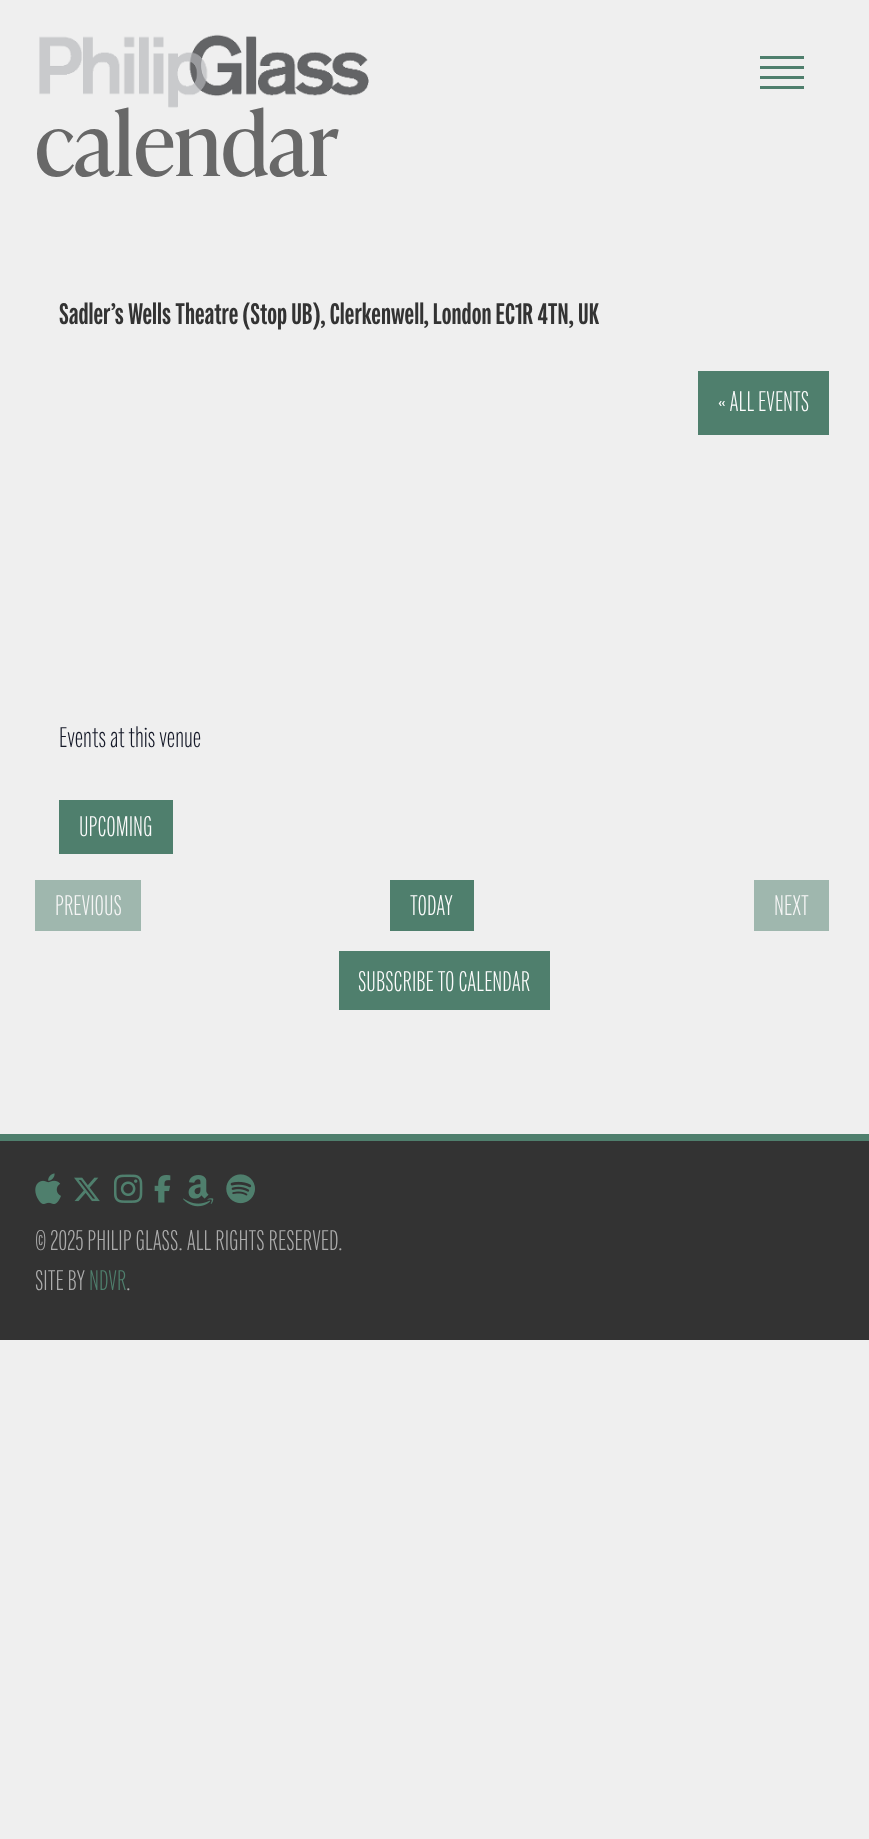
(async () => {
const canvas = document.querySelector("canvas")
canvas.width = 869
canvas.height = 1839
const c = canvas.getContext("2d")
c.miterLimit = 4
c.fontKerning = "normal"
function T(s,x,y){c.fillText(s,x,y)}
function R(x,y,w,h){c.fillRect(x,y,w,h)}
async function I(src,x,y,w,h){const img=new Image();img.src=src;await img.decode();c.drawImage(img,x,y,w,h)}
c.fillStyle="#efefef"
R(0,0,869,1839)
await I("1.png",39,34,330,74)
c.fillStyle="#4f7f6d"
R(760,56,44,3)
R(760,66,44,3)
R(760,76,44,3)
R(760,86,44,3)
c.font="87.5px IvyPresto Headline"
c.fillStyle="#686868"
T("calendar",35,176)
c.font="800 30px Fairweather"
c.fillStyle="#333"
T("Sadler’s Wells Theatre (Stop UB), Clerkenwell, London EC1R 4TN, UK",59,324)
c.fillStyle="#4f7f6d"
R(698,371,131,64)
c.font="300 28.75px Fairweather"
c.fillStyle="#fdfdfd"
T("« ALL EVENTS",718,411)
c.fillStyle="#141827"
T("Events at this venue",59,747)
c.fillStyle="#4f7f6d"
R(59,800,114,54)
c.fillStyle="#fdfdfd"
T("UPCOMING",79,836)
c.fillStyle="#9fb7ae"
R(35,880,106,51)
c.fillStyle="#f6f6f6"
T("PREVIOUS",55,915)
c.fillStyle="#4f7f6d"
R(390,880,84,51)
c.fillStyle="#fdfdfd"
T("TODAY",410,915)
c.fillStyle="#9fb7ae"
R(754,880,75,51)
c.fillStyle="#f6f6f6"
T("NEXT",774,915)
c.fillStyle="#4f7f6d"
R(339,951,211,59)
c.fillStyle="#fdfdfd"
T("SUBSCRIBE TO CALENDAR",358,991)
c.fillStyle="#333"
R(0,1141,869,199)
c.fillStyle="#4f7f6d"
R(0,1134,869,7)
await I("2.png",35,1173,26,31)
await I("3.png",74,1177,26,25)
await I("4.png",114,1174,29,29)
await I("5.png",154,1175,17,28)
await I("6.png",183,1175,31,32)
await I("7.png",226,1174,29,30)
c.fillStyle="#adadad"
T("© 2025 PHILIP GLASS. ALL RIGHTS RESERVED.",35,1250)
T("SITE BY",35,1290)
c.fillStyle="#4f7f6d"
T("NDVR",89,1290)
c.fillStyle="#adadad"
T(".",126,1290)
})()
